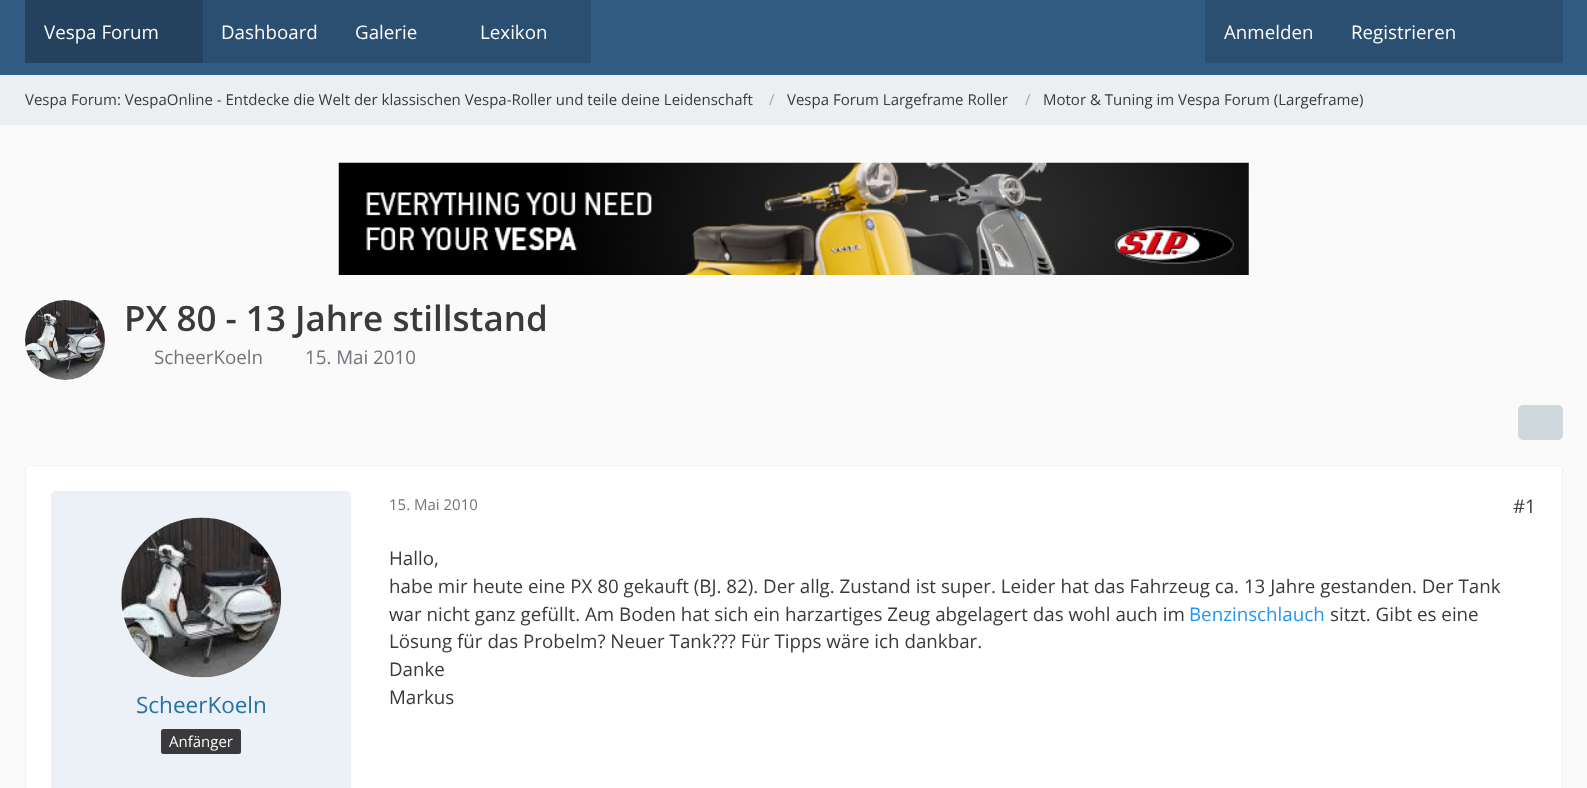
(async () => {
const canvas = document.querySelector("canvas")
canvas.width = 1587
canvas.height = 788
const c = canvas.getContext("2d")
c.miterLimit = 4
c.fontKerning = "normal"
function T(s,x,y){c.fillText(s,x,y)}
function R(x,y,w,h){c.fillRect(x,y,w,h)}
function Q(x,y,w,h,r){c.beginPath();c.roundRect(x,y,w,h,r);c.fill()}
async function I(src,x,y,w,h){const img=new Image();img.src=src;await img.decode();c.drawImage(img,x,y,w,h)}
c.fillStyle="#fafafa"
R(0,0,1587,788)
c.fillStyle="#325c84"
R(0,0,1587,75)
c.fillStyle="#24425f"
R(25,0,178,63)
c.font="18.75px Open Sans"
c.fillStyle="#fafafa"
T("Vespa Forum",44,39)
c.fillStyle="#2b4f71"
R(203,0,388,63)
c.fillStyle="#fafafa"
T("Dashboard",221,39)
T("Galerie",355,39)
T("Lexikon",480,39)
c.fillStyle="#2b4f71"
R(1205,0,358,63)
c.fillStyle="#fafafa"
T("Anmelden",1224,39)
T("Registrieren",1351,39)
c.fillStyle="#eceff1"
R(0,75,1587,50)
c.font="15px Open Sans"
c.fillStyle="#3a3a3d"
T("Vespa Forum: VespaOnline - Entdecke die Welt der klassischen Vespa-Roller und teile deine Leidenschaft",25,105)
c.fillStyle="#aaa"
T("/",769,105)
c.fillStyle="#3a3a3d"
T("Vespa Forum Largeframe Roller",787,105)
c.fillStyle="#aaa"
T("/",1025,105)
c.fillStyle="#3a3a3d"
T("Motor & Tuning im Vespa Forum (Largeframe)",1043,105)
await I("1.png",338,162,911,113)
c.fillStyle="#fff"
c.beginPath()
c.arc(65,340,40,0,7)
c.fill()
await I("2.png",25,300,80,80)
c.font="600 35px Open Sans"
c.fillStyle="#3a3a3d"
T("PX 80 - 13 Jahre stillstand",124,331)
c.font="18.75px Open Sans"
c.fillStyle="#71757a"
T("ScheerKoeln",154,364)
T("15. Mai 2010",305,364)
c.fillStyle="#cfd8dc"
Q(1518,405,45,35,5)
c.fillStyle="#fff"
c.beginPath()
c.roundRect(25.5,465.5,1537,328,4.5)
c.fill()
c.strokeStyle="#ecf1f7"
c.stroke()
c.font="15px Open Sans"
c.fillStyle="#71757a"
T("15. Mai 2010",389,510)
c.font="18.75px Open Sans"
c.fillStyle="#3a3a3d"
T("#1",1513,513)
T("Hallo,",389,565)
T("habe mir heute eine PX 80 gekauft (BJ. 82). Der allg. Zustand ist super. Leider hat das Fahrzeug ca. 13 Jahre gestanden. Der Tank",389,593)
T("war nicht ganz gefüllt. Am Boden hat sich ein harzartiges Zeug abgelagert das wohl auch im",389,621)
c.fillStyle="#2195f4"
T("Benzinschlauch",1189,621)
c.fillStyle="#3a3a3d"
T("sitzt. Gibt es eine",1330,621)
T("Lösung für das Probelm? Neuer Tank??? Für Tipps wäre ich dankbar.",389,648)
T("Danke",389,676)
T("Markus",389,704)
c.fillStyle="#ecf1f7"
Q(51,491,300,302,5)
c.fillStyle="#fff"
c.beginPath()
c.arc(201,598,80,0,7)
c.fill()
await I("3.png",121,517,161,161)
c.font="22.5px Open Sans"
c.fillStyle="#2671a6"
T("ScheerKoeln",136,713)
c.fillStyle="#3a3a3d"
Q(161,729,80,25,2.5)
c.font="15px Open Sans"
c.fillStyle="#fafafa"
T("Anfänger",169,747)
})()
